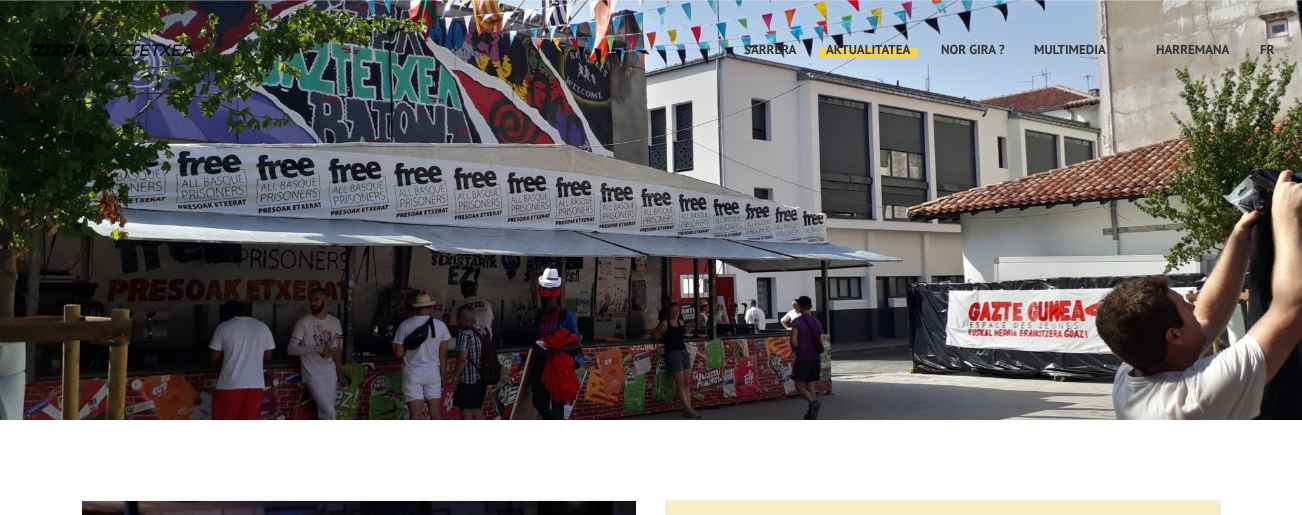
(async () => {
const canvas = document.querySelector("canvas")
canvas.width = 1302
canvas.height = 515
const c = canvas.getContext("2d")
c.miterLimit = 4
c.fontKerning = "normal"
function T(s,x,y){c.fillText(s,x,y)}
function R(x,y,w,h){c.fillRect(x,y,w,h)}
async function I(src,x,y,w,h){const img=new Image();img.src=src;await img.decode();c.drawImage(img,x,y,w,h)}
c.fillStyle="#fff"
R(0,0,1302,515)
await I("1.png",0,0,1302,420)
c.strokeStyle="#f0f0f0"
c.strokeRect(81.5,500.5,555,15)
await I("2.png",82,501,554,14)
c.strokeRect(665.5,500.5,555,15)
c.fillStyle="#f7eec6"
R(666,501,554,14)
await I("3.png",32,44,162,12)
c.font="bold 13px PT Sans"
c.fillStyle="#333"
T("SARRERA",744,54)
c.fillStyle="#f7d154"
R(819,48,99,10)
c.fillStyle="#333"
T("AKTUALITATEA",826,54)
T("NOR GIRA ?",941,54)
T("MULTIMEDIA",1034,54)
await I("4.png",1116,46,7,5)
T("HARREMANA",1156,54)
T("FR",1260,54)
})()
